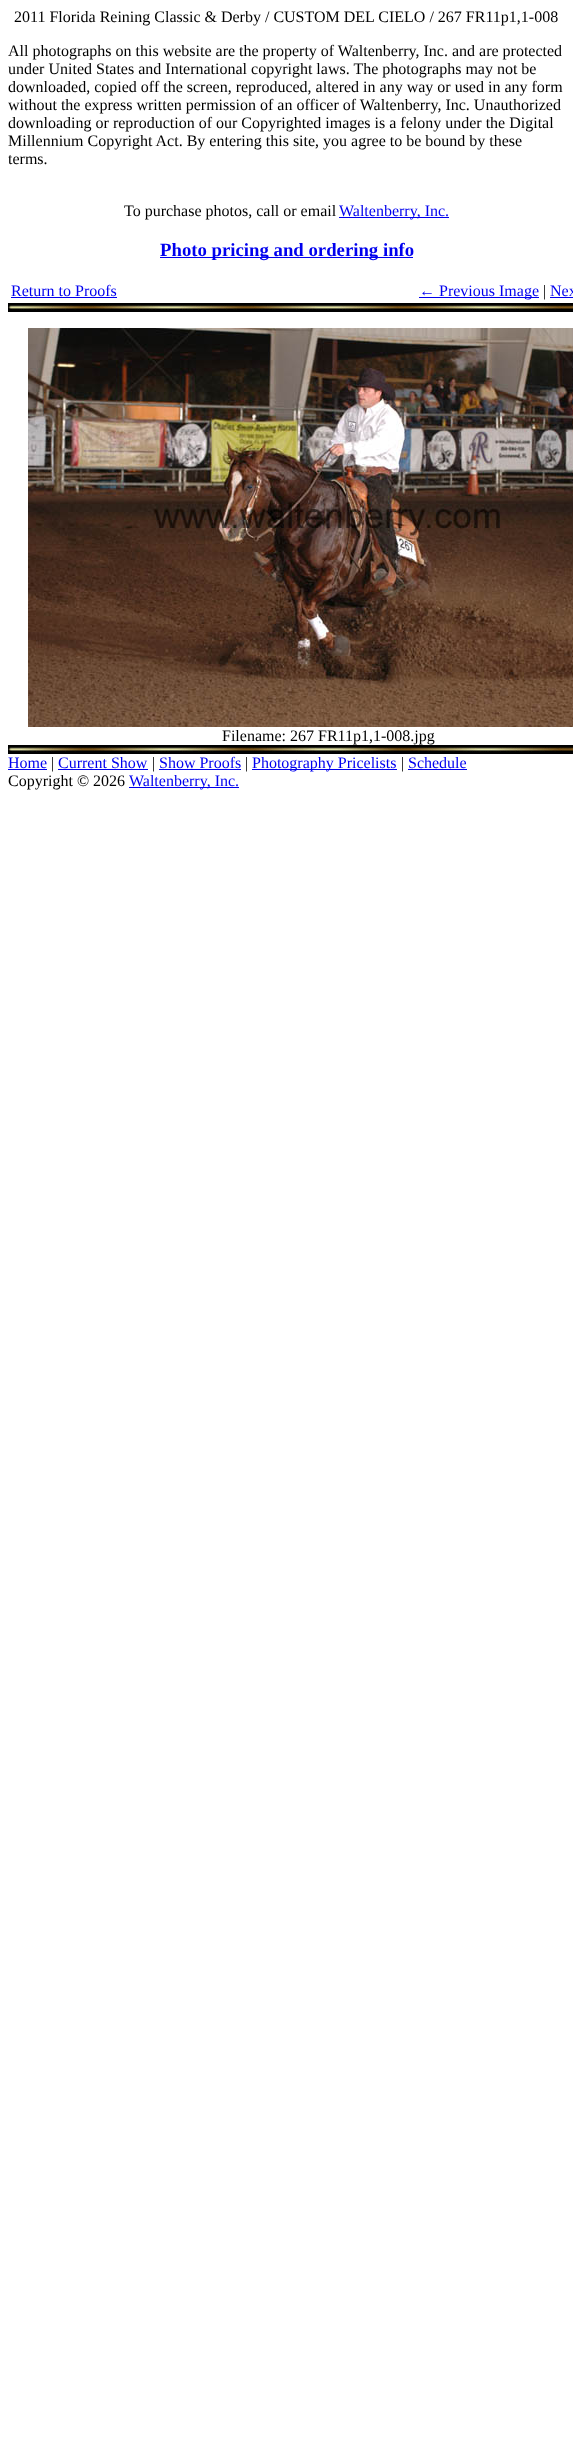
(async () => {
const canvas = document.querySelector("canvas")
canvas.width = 573
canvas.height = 2451
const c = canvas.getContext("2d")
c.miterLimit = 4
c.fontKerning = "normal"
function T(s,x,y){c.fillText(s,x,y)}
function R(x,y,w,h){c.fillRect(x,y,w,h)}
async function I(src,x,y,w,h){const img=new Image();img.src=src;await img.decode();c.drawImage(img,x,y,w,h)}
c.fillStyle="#fff"
R(0,0,573,2451)
c.font="16px Liberation Serif"
c.fillStyle="#000"
T("2011 Florida Reining Classic & Derby / CUSTOM DEL CIELO / 267 FR11p1,1-008",14,22)
T("All photographs on this website are the property of Waltenberry, Inc. and are protected",8,56)
T("under United States and International copyright laws. The photographs may not be",8,74)
T("downloaded, copied off the screen, reproduced, altered in any way or used in any form",8,92)
T("without the express written permission of an officer of Waltenberry, Inc. Unauthorized",8,110)
T("downloading or reproduction of our Copyrighted images is a felony under the Digital",8,128)
T("Millennium Copyright Act. By entering this site, you agree to be bound by these",8,146)
T("terms.",8,164)
T("To purchase photos, call or email",124,216)
c.fillStyle="#00e"
R(339,217,110,1)
T("Waltenberry, Inc.",339,216)
R(160,257,253,1)
c.font="bold 18.75px Liberation Serif"
T("Photo pricing and ordering info",160,256)
c.font="16px Liberation Serif"
T("Return to Proofs",11,296)
R(11,297,106,1)
R(419,297,120,1)
T("← Previous Image",419,296)
c.fillStyle="#000"
T("|",543,296)
c.fillStyle="#00e"
T("Nex",550,296)
R(550,297,23,1)
await I("1.png",8,303,565,9)
await I("2.png",28,328,545,399)
c.fillStyle="#000"
T("Filename: 267 FR11p1,1-008.jpg",222,741)
await I("1.png",8,745,565,9)
c.fillStyle="#00e"
T("Home",8,768)
R(8,769,39,1)
c.fillStyle="#000"
T("|",51,768)
c.fillStyle="#00e"
T("Current Show",58,768)
R(58,769,90,1)
c.fillStyle="#000"
T("|",152,768)
c.fillStyle="#00e"
T("Show Proofs",159,768)
R(159,769,82,1)
c.fillStyle="#000"
T("|",245,768)
c.fillStyle="#00e"
R(252,769,145,1)
T("Photography Pricelists",252,768)
c.fillStyle="#000"
T("|",401,768)
c.fillStyle="#00e"
T("Schedule",408,768)
R(408,769,59,1)
c.fillStyle="#000"
T("Copyright © 2026",8,786)
c.fillStyle="#00e"
R(129,787,110,1)
T("Waltenberry, Inc.",129,786)
})()
